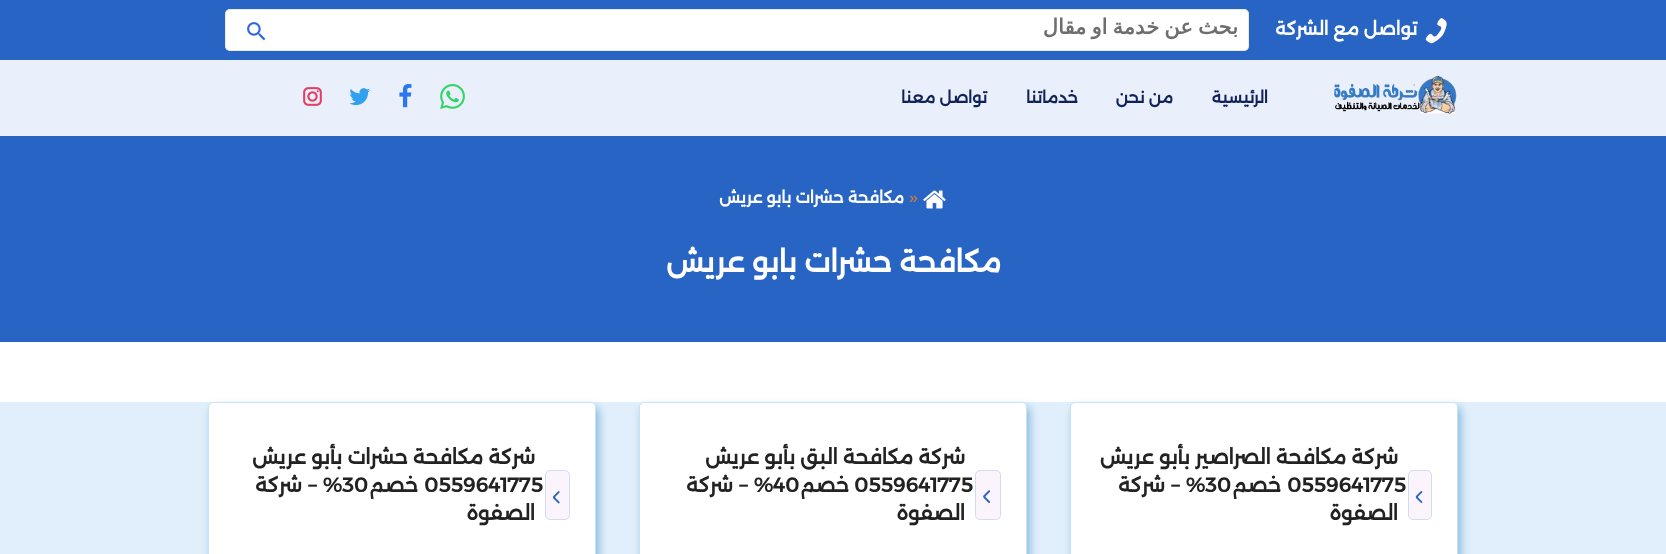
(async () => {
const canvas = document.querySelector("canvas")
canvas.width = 1666
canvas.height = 554
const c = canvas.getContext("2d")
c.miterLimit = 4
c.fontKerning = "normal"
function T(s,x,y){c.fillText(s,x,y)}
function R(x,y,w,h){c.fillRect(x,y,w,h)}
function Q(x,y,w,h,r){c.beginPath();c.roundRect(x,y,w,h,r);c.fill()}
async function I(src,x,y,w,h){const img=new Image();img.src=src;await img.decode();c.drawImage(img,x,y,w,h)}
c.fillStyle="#fff"
R(0,0,1666,554)
c.fillStyle="#2764c3"
R(0,0,1666,60)
await I("1.png",1425,18,22,26)
c.direction="rtl"
c.font="bold 18px Alexandria"
c.fillStyle="#fff"
T("تواصل مع الشركة",1417,35)
Q(225,9,1024,42,5)
c.beginPath()
c.roundRect(225.5,9.5,1023,41,4.5)
c.strokeStyle="#d7d7d787"
c.stroke()
c.save()
c.beginPath()
c.rect(309,15,929,25)
c.clip()
c.wordSpacing="-1.5px"
c.font="bold 21px DejaVu Sans"
c.fillStyle="#6e6e6e"
T("بحث عن خدمة او مقال",1238,34)
c.restore()
await I("2.png",247,22,19,19)
c.fillStyle="#eaeffc"
R(0,60,1666,76)
await I("3.png",1334,75,123,39)
c.font="bold 16px Alexandria"
c.fillStyle="#102259"
T("الرئيسية",1268,103)
T("من نحن",1173,103)
T("خدماتنا",1078,103)
T("تواصل معنا",987,103)
await I("4.png",440,84,25,25)
await I("5.png",399,84,13,24)
await I("6.png",349,88,21,18)
await I("7.png",303,87,19,19)
c.fillStyle="#2764c3"
R(0,136,1666,206)
await I("8.png",923,190,23,19)
c.direction="ltr"
c.font="16px Liberation Sans"
c.fillStyle="#e07f24"
T("»",909,203)
c.direction="rtl"
c.font="bold 16px Alexandria"
c.fillStyle="#fff"
T("مكافحة حشرات بابو عريش",904,203)
c.font="bold 29px Alexandria"
T("مكافحة حشرات بابو عريش",1001,272)
c.fillStyle="#e0effb"
R(0,402,1666,152)
c.fillStyle="#006bb766"
c.filter="blur(4px)"
c.beginPath()
c.roundRect(1073,407,388,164,5)
c.fill()
c.filter="none"
c.fillStyle="#fff"
Q(1070,402,388,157,5)
c.beginPath()
c.roundRect(1070.5,402.5,387,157,4.5)
c.strokeStyle="#006bb733"
c.stroke()
c.fillStyle="#fbf4fc"
Q(1408,470,24,50,5)
c.beginPath()
c.roundRect(1408.5,470.5,23,49,4.5)
c.strokeStyle="#006bb72b"
c.stroke()
await I("9.png",1415,491,8,12)
c.font="bold 20px Alexandria"
c.fillStyle="#222"
T("شركة مكافحة الصراصير بأبو عريش",1398,464)
c.direction="ltr"
T("0559641775",1287,492)
c.direction="rtl"
T("خصم",1281,492)
c.direction="ltr"
T("30",1205,492)
c.wordSpacing="1px"
c.direction="rtl"
T("% – شركة",1205,492)
c.wordSpacing="0px"
T("الصفوة",1398,520)
c.fillStyle="#006bb766"
c.filter="blur(4px)"
c.beginPath()
c.roundRect(642,407,388,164,5)
c.fill()
c.filter="none"
c.fillStyle="#fff"
Q(639,402,388,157,5)
c.beginPath()
c.roundRect(639.5,402.5,387,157,4.5)
c.strokeStyle="#006bb733"
c.stroke()
c.fillStyle="#fbf4fc"
Q(975,470,26,50,5)
c.beginPath()
c.roundRect(975.5,470.5,25,49,4.5)
c.strokeStyle="#006bb72b"
c.stroke()
await I("10.png",983,490,8,13)
c.fillStyle="#222"
T("شركة مكافحة البق بأبو عريش",965,464)
c.direction="ltr"
T("0559641775",854,492)
c.direction="rtl"
T("خصم",849,492)
c.direction="ltr"
T("40",773,492)
c.wordSpacing="1px"
c.direction="rtl"
T("% – شركة",773,492)
c.wordSpacing="0px"
T("الصفوة",965,520)
c.fillStyle="#006bb766"
c.filter="blur(4px)"
c.beginPath()
c.roundRect(211,407,388,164,5)
c.fill()
c.filter="none"
c.fillStyle="#fff"
Q(208,402,388,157,5)
c.beginPath()
c.roundRect(208.5,402.5,387,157,4.5)
c.strokeStyle="#006bb733"
c.stroke()
c.fillStyle="#fbf4fc"
Q(545,470,25,50,5)
c.beginPath()
c.roundRect(545.5,470.5,24,49,4.5)
c.strokeStyle="#006bb72b"
c.stroke()
await I("11.png",552,491,8,13)
c.fillStyle="#222"
T("شركة مكافحة حشرات بأبو عريش",535,464)
c.direction="ltr"
T("0559641775",424,492)
c.direction="rtl"
T("خصم",418,492)
c.direction="ltr"
T("30",342,492)
c.wordSpacing="1px"
c.direction="rtl"
T("% – شركة",342,492)
c.wordSpacing="0px"
T("الصفوة",535,520)
})()
